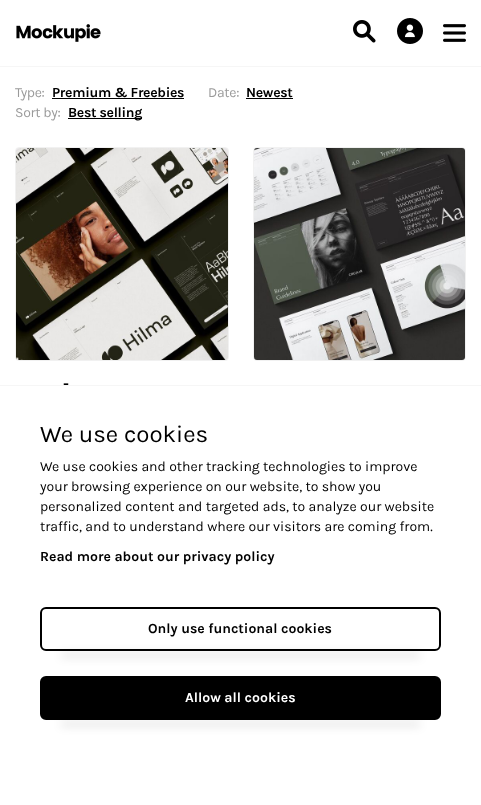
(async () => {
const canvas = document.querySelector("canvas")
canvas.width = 481
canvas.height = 805
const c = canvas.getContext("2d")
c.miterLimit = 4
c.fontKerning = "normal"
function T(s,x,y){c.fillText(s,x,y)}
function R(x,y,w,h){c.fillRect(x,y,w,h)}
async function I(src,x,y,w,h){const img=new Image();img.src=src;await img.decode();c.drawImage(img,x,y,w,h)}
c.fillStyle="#fff"
R(0,0,481,805)
c.fillStyle="#f6f6f6"
R(0,66,481,1)
await I("1.png",16,24,85,18)
await I("2.png",353,20,23,23)
await I("3.png",397,18,26,26)
await I("4.png",443,24,23,18)
c.letterSpacing="-0.3px"
c.font="14px Karla"
c.fillStyle="#9a9a9a"
T("Type:",15,97)
c.font="bold 14px Karla"
c.fillStyle="#000"
T("Premium & Freebies",52,97)
R(52,98,132,1)
c.font="14px Karla"
c.fillStyle="#9a9a9a"
T("Date:",208,97)
c.font="bold 14px Karla"
c.fillStyle="#000"
T("Newest",246,97)
R(246,98,47,1)
c.font="14px Karla"
c.fillStyle="#9a9a9a"
T("Sort by:",15,117)
c.fillStyle="#000"
R(68,118,74,1)
c.font="bold 14px Karla"
T("Best selling",68,117)
c.beginPath()
c.roundRect(253.5,147.5,212,213,3.5)
c.strokeStyle="#f1f1f1"
c.stroke()
await I("5.png",254,148,211,212)
c.beginPath()
c.roundRect(15.5,147.5,213,213,3.5)
c.stroke()
await I("6.png",16,148,212,212)
c.letterSpacing="0px"
c.font="bold 16px Karla"
T("-",63,389)
c.fillStyle="#f6f6f6"
R(0,385,481,1)
c.font="24px Karla"
c.fillStyle="#000"
T("We use cookies",40,442)
c.font="14px Karla"
T("We use cookies and other tracking technologies to improve",40,471)
T("your browsing experience on our website, to show you",40,491)
T("personalized content and targeted ads, to analyze our website",40,511)
T("traffic, and to understand where our visitors are coming from.",40,531)
c.font="bold 14px Karla"
T("Read more about our privacy policy",40,561)
c.fillStyle="#00000047"
c.filter="blur(5px)"
c.beginPath()
c.rect(61,654,359,2)
c.fill()
c.filter="none"
c.beginPath()
c.roundRect(41,608,399,42,5)
c.strokeStyle="#000"
c.lineWidth=2
c.stroke()
c.fillStyle="#000"
T("Only use functional cookies",148,633)
c.fillStyle="#00000047"
c.filter="blur(5px)"
c.beginPath()
c.rect(61,723,359,2)
c.fill()
c.filter="none"
c.fillStyle="#000"
c.beginPath()
c.roundRect(41,677,399,42,5)
c.fill()
c.stroke()
c.fillStyle="#fff"
T("Allow all cookies",185,702)
})()
